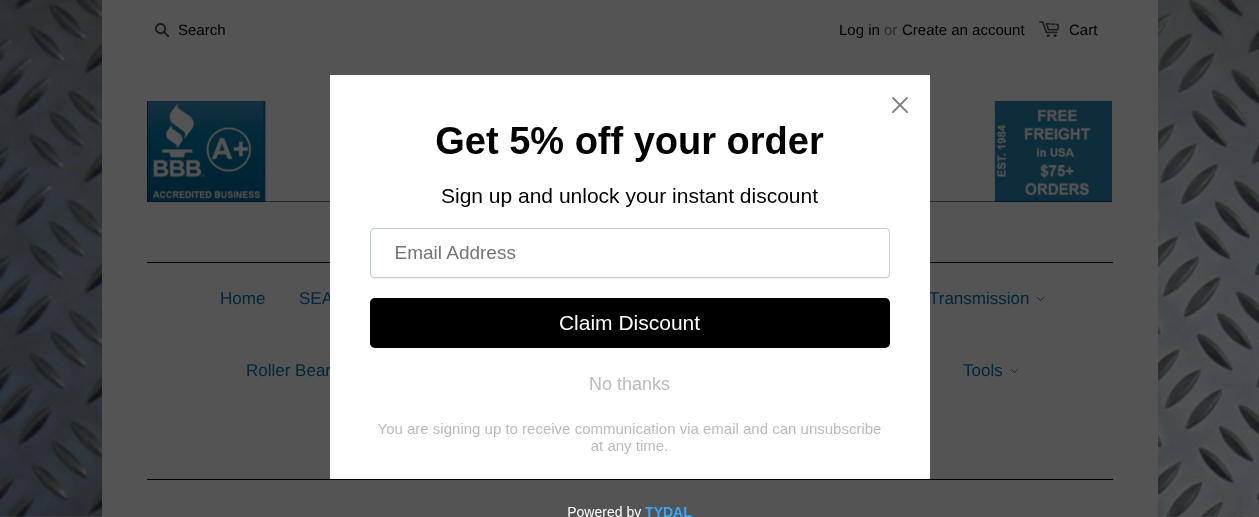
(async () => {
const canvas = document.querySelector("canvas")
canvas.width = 1259
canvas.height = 517
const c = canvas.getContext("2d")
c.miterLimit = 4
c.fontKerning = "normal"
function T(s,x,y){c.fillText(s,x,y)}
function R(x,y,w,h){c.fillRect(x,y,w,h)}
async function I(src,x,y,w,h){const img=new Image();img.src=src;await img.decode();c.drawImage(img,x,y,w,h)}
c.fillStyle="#fff"
R(0,0,1259,517)
await I("1.png",0,0,1259,517)
R(102,0,1056,517)
await I("3.png",155,23,14,14)
c.font="15px Liberation Sans"
c.fillStyle="#050505"
T("Search",178,35)
T("Log in",839,35)
c.fillStyle="#888"
T("or",884,35)
c.fillStyle="#050505"
T("Create an account",902,35)
await I("4.png",1039,21,20,16)
c.font="11px Liberation Sans"
c.fillStyle="#dfdfdf"
T("0",1050,27)
c.font="15px Liberation Sans"
c.fillStyle="#050505"
T("Cart",1069,35)
await I("5.png",147,101,965,101)
c.fillStyle="#020202"
R(147,262,966,1)
R(147,479,966,1)
c.font="17px Liberation Sans"
c.fillStyle="#0477b2"
T("Home",220,304)
T("SEA",299,304)
await I("6.png",1037,297,7,4)
T("Transmission",929,304)
T("Roller Bear",246,376)
await I("6.png",1011,369,7,4)
T("Tools",963,376)
await I("2.png",0,0,1259,517)
})()
